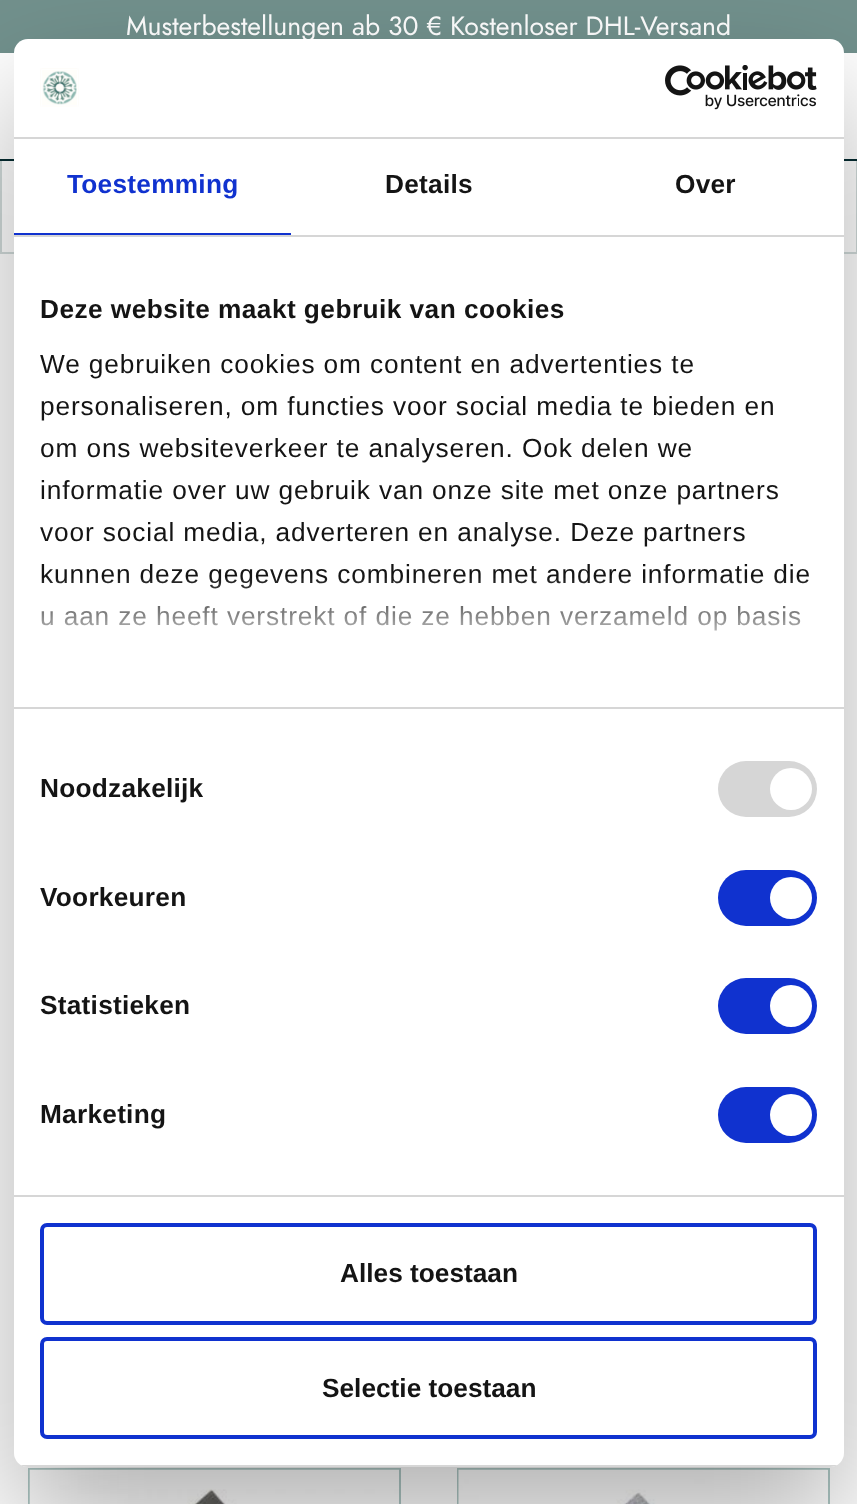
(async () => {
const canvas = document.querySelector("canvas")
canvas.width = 857
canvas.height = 1504
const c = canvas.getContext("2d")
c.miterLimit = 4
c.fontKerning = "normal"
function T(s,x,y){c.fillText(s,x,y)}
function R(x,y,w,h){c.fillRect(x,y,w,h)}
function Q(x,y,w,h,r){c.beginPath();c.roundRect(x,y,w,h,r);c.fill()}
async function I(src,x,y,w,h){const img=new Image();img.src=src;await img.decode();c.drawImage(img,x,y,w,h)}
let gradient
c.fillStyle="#fff"
R(0,0,857,1504)
c.fillStyle="#72918d"
R(0,0,857,53)
c.font="26.6px Jost"
c.fillStyle="#fff"
T("Musterbestellungen ab 30 € Kostenloser DHL-Versand",126,35)
c.strokeStyle="#d1dbda"
c.lineWidth=2
c.strokeRect(1,160,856,93)
c.fillStyle="#042b30"
R(0,159,857,2)
c.strokeStyle="#aec8c5"
c.strokeRect(29,1469,371,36)
await I("1.png",29,1469,370,35)
c.strokeRect(458,1469,371,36)
await I("2.png",458,1469,370,35)
c.fillStyle="#0000004d"
c.filter="blur(59.5px)"
c.beginPath()
c.roundRect(14,95,830,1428,14)
c.fill()
c.filter="none"
c.fillStyle="#fff"
Q(14,39,830,1428,14)
c.fillStyle="#d6d6d6"
R(14,137,830,2)
await I("3.png",40,68,39,39)
await I("4.png",665,65,152,45)
R(14,235,830,2)
c.fillStyle="#1032cf"
R(14,233,277,2)
c.letterSpacing="0.25px"
c.font="bold 26.25px Liberation Sans"
T("Toestemming",67,193)
c.fillStyle="#141414"
T("Details",385,193)
T("Over",675,193)
c.fillStyle="#d6d6d6"
R(14,707,830,2)
c.letterSpacing="0.45px"
c.fillStyle="#141414"
T("Deze website maakt gebruik van cookies",40,318)
c.letterSpacing="0.88px"
c.font="26.25px Liberation Sans"
T("We gebruiken cookies om content en advertenties te",40,373)
T("personaliseren, om functies voor social media te bieden en",40,415)
T("om ons websiteverkeer te analyseren. Ook delen we",40,457)
T("informatie over uw gebruik van onze site met onze partners",40,499)
T("voor social media, adverteren en analyse. Deze partners",40,541)
T("kunnen deze gegevens combineren met andere informatie die",40,583)
T("u aan ze heeft verstrekt of die ze hebben verzameld op basis",40,625)
gradient = c.createLinearGradient(417,707,417,576)
gradient.addColorStop(0,"#fff")
gradient.addColorStop(.5,"#ffffffcc")
gradient.addColorStop(1,"#ffffff00")
c.fillStyle = gradient
R(41,578,768,53)
c.fillStyle="#d6d6d6"
R(14,1195,830,2)
c.letterSpacing="0.25px"
c.font="bold 26.25px Liberation Sans"
c.fillStyle="#141414"
T("Noodzakelijk",40,797)
c.fillStyle="#d6d6d6"
Q(718,761,99,56,28)
c.fillStyle="#fff"
c.beginPath()
c.arc(791,789,21,0,7)
c.fill()
c.fillStyle="#141414"
T("Voorkeuren",40,906)
c.fillStyle="#1032cf"
Q(718,870,99,56,28)
c.fillStyle="#fff"
c.beginPath()
c.arc(791,898,21,0,7)
c.fill()
c.fillStyle="#141414"
T("Statistieken",40,1014)
c.fillStyle="#1032cf"
Q(718,978,99,56,28)
c.fillStyle="#fff"
c.beginPath()
c.arc(791,1006,21,0,7)
c.fill()
c.fillStyle="#141414"
T("Marketing",40,1123)
c.fillStyle="#1032cf"
Q(718,1087,99,56,28)
c.fillStyle="#fff"
c.beginPath()
c.arc(791,1115,21,0,7)
c.fill()
c.save()
c.beginPath()
c.roundRect(14,39,830,1428,14)
c.clip()
c.fillStyle="#d6d6d6"
R(14,1465,830,2)
c.restore()
c.beginPath()
c.roundRect(42,1225,773,98,5)
c.strokeStyle="#1032cf"
c.lineWidth=4
c.stroke()
c.letterSpacing="0px"
c.fillStyle="#141414"
T("Alles toestaan",340,1282)
c.beginPath()
c.roundRect(42,1339,773,98,5)
c.stroke()
T("Selectie toestaan",322,1397)
})()
